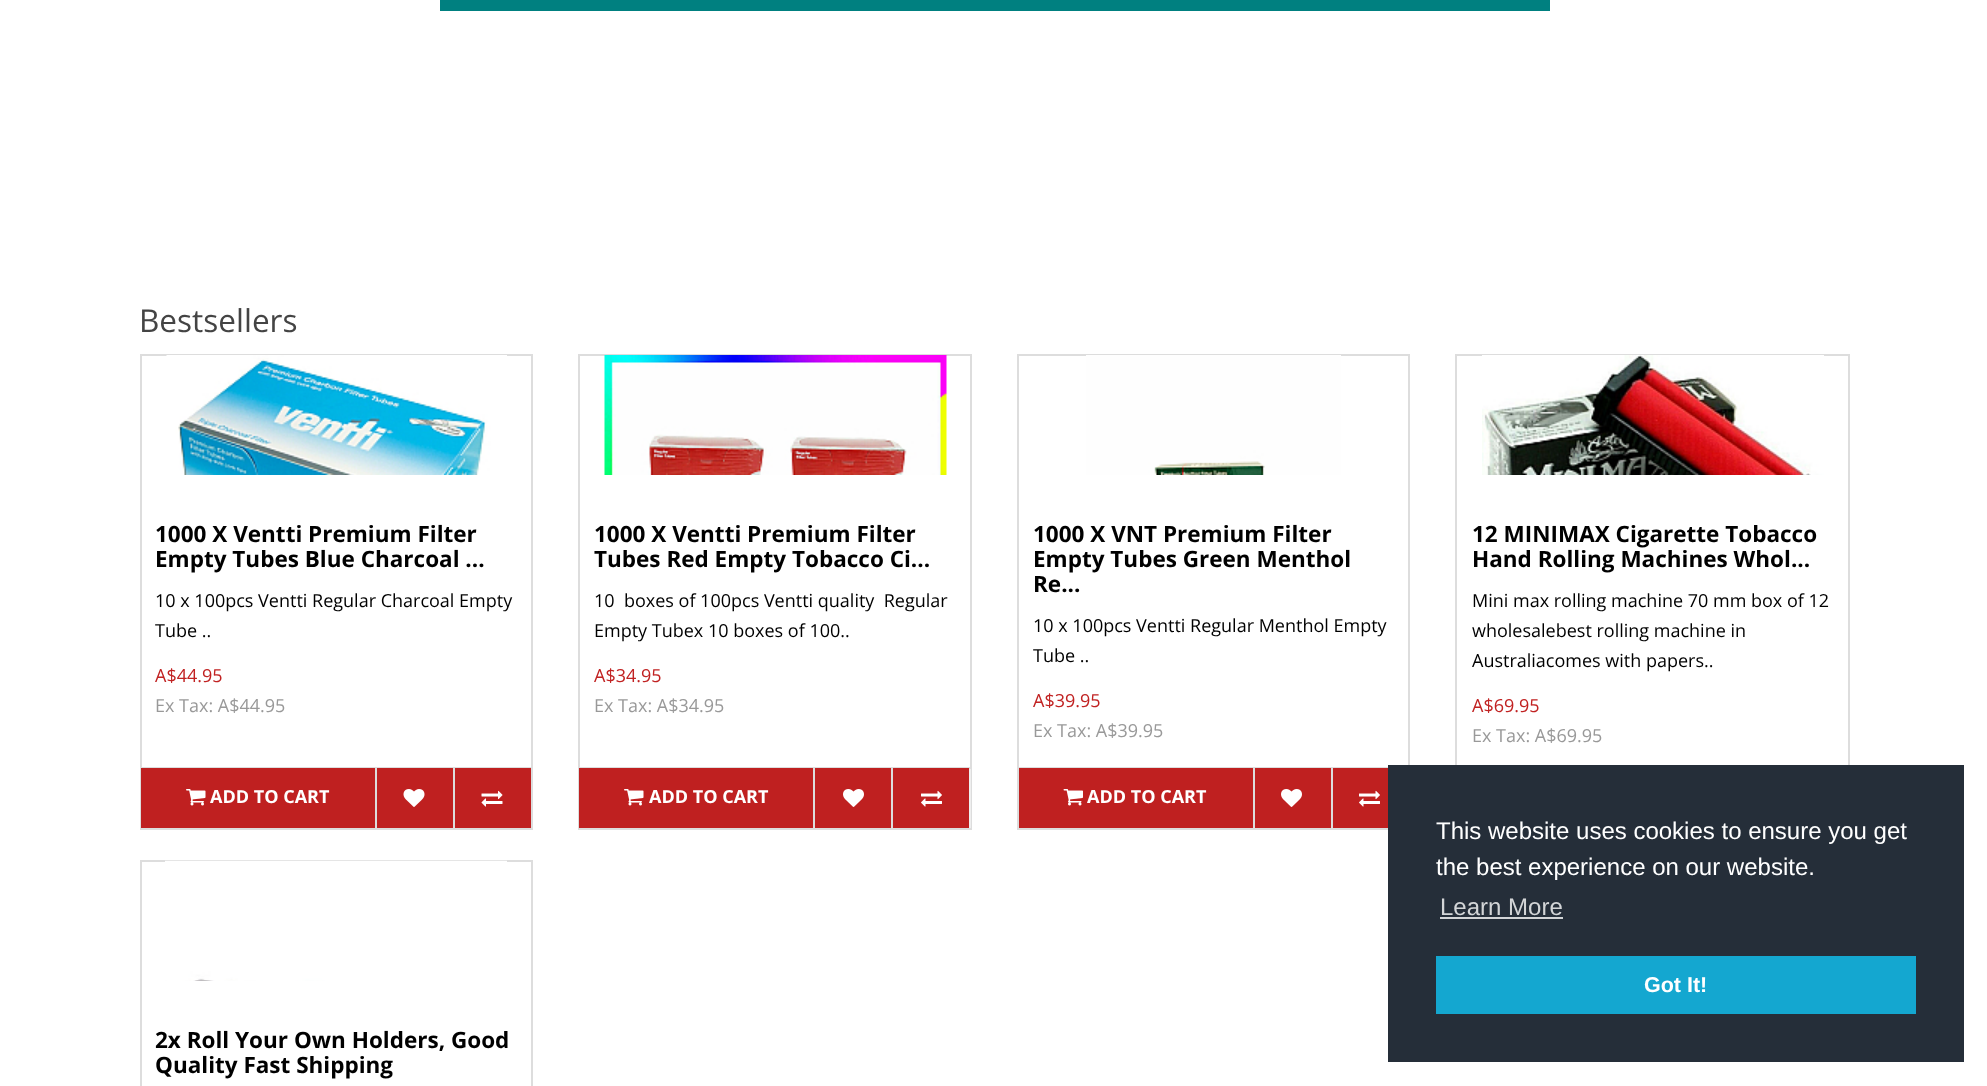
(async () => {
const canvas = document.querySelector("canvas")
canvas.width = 1987
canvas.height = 1086
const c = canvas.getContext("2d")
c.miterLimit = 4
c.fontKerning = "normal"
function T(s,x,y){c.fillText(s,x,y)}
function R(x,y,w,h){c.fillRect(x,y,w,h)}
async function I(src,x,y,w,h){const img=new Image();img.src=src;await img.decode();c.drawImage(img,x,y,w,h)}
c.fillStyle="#fff"
R(0,0,1987,1086)
c.fillStyle="#008080"
R(440,0,1110,11)
c.font="31.5px Open Sans"
c.fillStyle="#444"
T("Bestsellers",139,332)
c.strokeStyle="#ddd"
c.lineWidth=2
c.strokeRect(141,355,391,474)
await I("1.png",166,355,341,120)
c.font="bold 22.5px Open Sans"
c.fillStyle="#000"
T("1000 X Ventti Premium Filter",155,542)
T("Empty Tubes Blue Charcoal ...",155,567)
c.font="18px Open Sans"
T("10 x 100pcs Ventti Regular Charcoal Empty",155,607)
T("Tube ..",155,637)
c.fillStyle="#c12222"
T("A$44.95",155,682)
c.fillStyle="#999"
T("Ex Tax: A$44.95",155,712)
c.fillStyle="#ddd"
R(141,767,390,1)
c.fillStyle="#bf2020"
R(141,768,234,60)
await I("2.png",186,789,20,17)
c.font="bold 18px Open Sans"
c.fillStyle="#fff"
T("ADD TO CART",210,803)
c.fillStyle="#bf2020"
R(377,768,76,60)
c.fillStyle="#ddd"
R(375,768,2,60)
await I("3.png",403,789,22,18)
c.fillStyle="#bf2020"
R(455,768,76,60)
c.fillStyle="#ddd"
R(453,768,2,60)
await I("4.png",481,790,22,17)
c.strokeRect(579,355,392,474)
await I("5.png",604,355,343,120)
c.font="bold 22.5px Open Sans"
c.fillStyle="#000"
T("1000 X Ventti Premium Filter",594,542)
T("Tubes Red Empty Tobacco Ci...",594,567)
c.font="18px Open Sans"
T("10  boxes of 100pcs Ventti quality  Regular",594,607)
T("Empty Tubex 10 boxes of 100..",594,637)
c.fillStyle="#c12222"
T("A$34.95",594,682)
c.fillStyle="#999"
T("Ex Tax: A$34.95",594,712)
c.fillStyle="#eee"
R(969,769,2,59)
c.fillStyle="#ddd"
R(579,767,392,2)
c.fillStyle="#bf2020"
R(579,768,234,60)
await I("2.png",624,789,20,17)
c.font="bold 18px Open Sans"
c.fillStyle="#fff"
T("ADD TO CART",649,803)
c.fillStyle="#bf2020"
R(815,768,76,60)
c.fillStyle="#ddd"
R(813,768,2,60)
await I("6.png",843,789,21,18)
c.fillStyle="#bf2020"
R(893,768,76,60)
c.fillStyle="#ddd"
R(891,768,2,60)
await I("7.png",921,790,21,17)
c.strokeRect(1018,355,391,474)
await I("8.png",1086,355,255,120)
c.font="bold 22.5px Open Sans"
c.fillStyle="#000"
T("1000 X VNT Premium Filter",1033,542)
T("Empty Tubes Green Menthol",1033,567)
T("Re...",1033,592)
c.font="18px Open Sans"
T("10 x 100pcs Ventti Regular Menthol Empty",1033,632)
T("Tube ..",1033,662)
c.fillStyle="#c12222"
T("A$39.95",1033,707)
c.fillStyle="#999"
T("Ex Tax: A$39.95",1033,737)
c.fillStyle="#ddd"
R(1019,767,369,1)
c.fillStyle="#bf2020"
R(1019,768,234,60)
await I("9.png",1063,789,20,17)
c.font="bold 18px Open Sans"
c.fillStyle="#fff"
T("ADD TO CART",1087,803)
c.fillStyle="#bf2020"
R(1255,768,76,60)
c.fillStyle="#ddd"
R(1253,768,2,60)
await I("6.png",1281,789,21,18)
c.fillStyle="#bf2020"
R(1333,768,55,60)
c.fillStyle="#ddd"
R(1331,768,2,60)
await I("7.png",1359,790,21,17)
c.strokeRect(1456,355,393,474)
await I("10.png",1482,355,342,120)
c.font="bold 22.5px Open Sans"
c.fillStyle="#000"
T("12 MINIMAX Cigarette Tobacco",1472,542)
T("Hand Rolling Machines Whol...",1472,567)
c.font="18px Open Sans"
T("Mini max rolling machine 70 mm box of 12",1472,607)
T("wholesalebest rolling machine in",1472,637)
T("Australiacomes with papers..",1472,667)
c.fillStyle="#c12222"
T("A$69.95",1472,712)
c.fillStyle="#999"
T("Ex Tax: A$69.95",1472,742)
c.strokeRect(141,861,391,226)
await I("11.png",165,860,342,121)
c.font="bold 22.5px Open Sans"
c.fillStyle="#000"
T("2x Roll Your Own Holders, Good",155,1048)
T("Quality Fast Shipping",155,1073)
c.fillStyle="#252e39"
R(1388,765,576,297)
c.font="24px Liberation Sans"
c.fillStyle="#fff"
T("This website uses cookies to ensure you get",1436,839)
T("the best experience on our website.",1436,875)
c.fillStyle="#d3d5d7"
T("Learn More",1440,915)
R(1440,917,123,2)
c.fillStyle="#14a7d0"
R(1436,956,480,58)
c.font="bold 21.5px Liberation Sans"
c.fillStyle="#fff"
T("Got It!",1644,992)
})()
